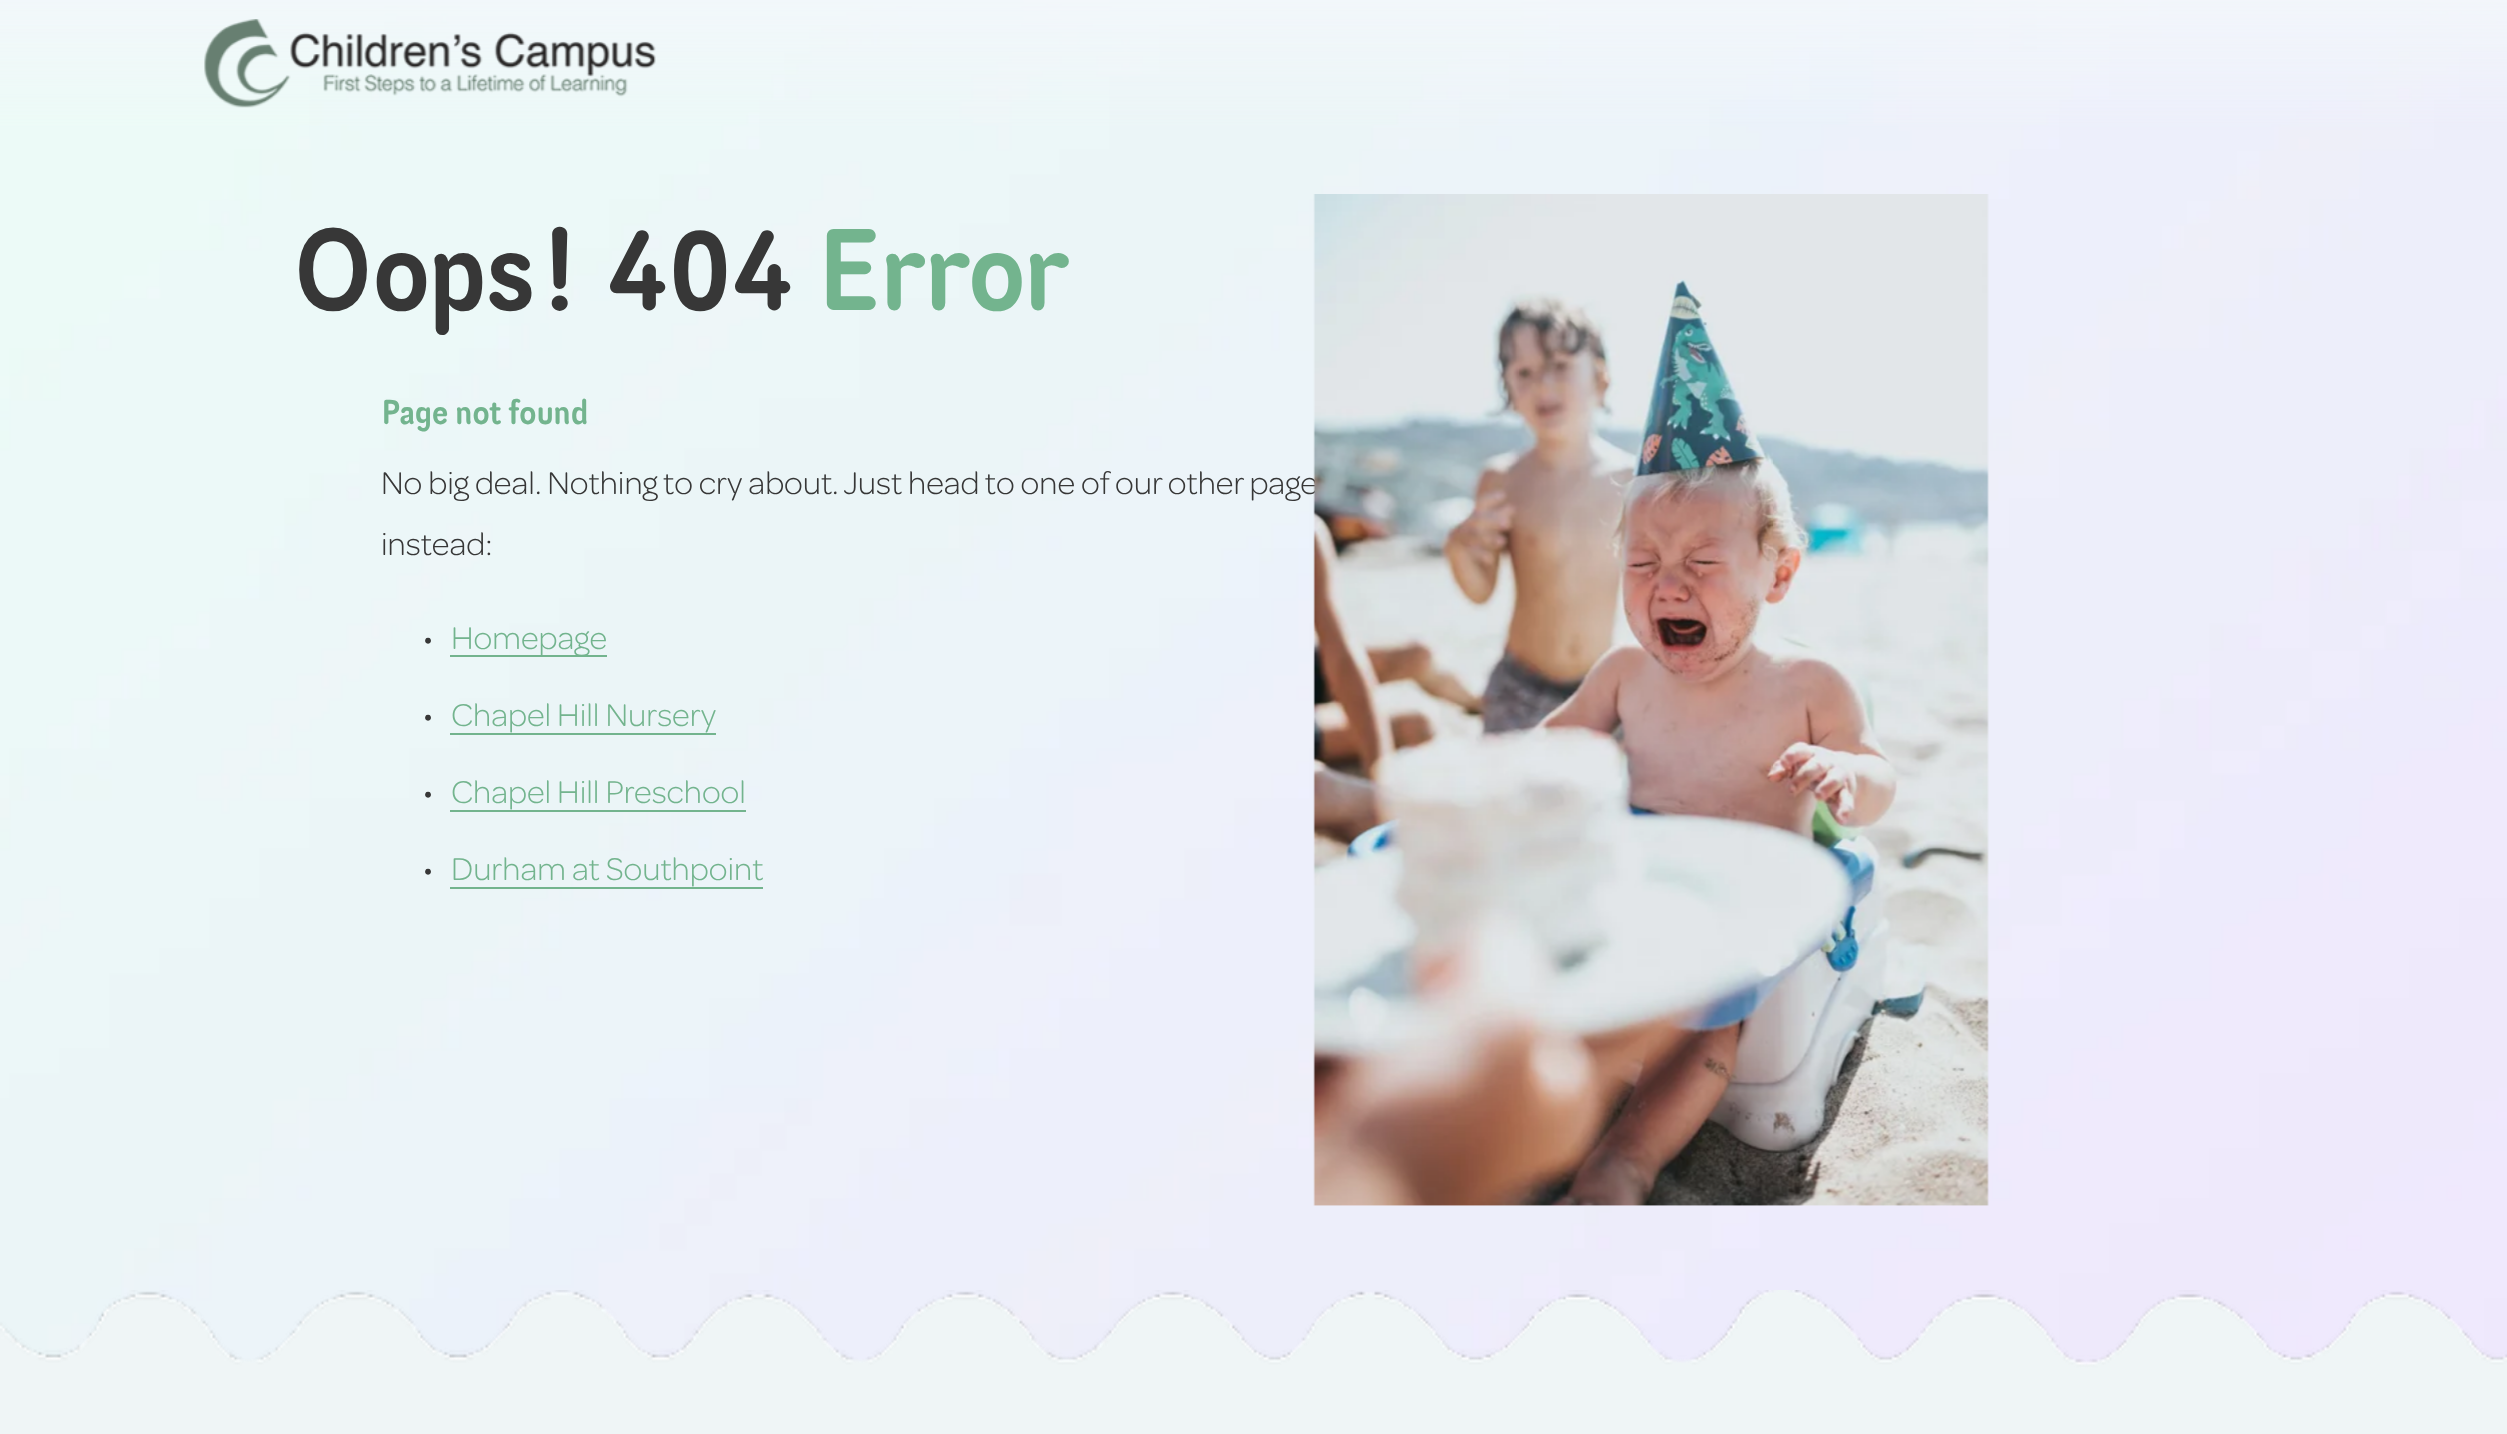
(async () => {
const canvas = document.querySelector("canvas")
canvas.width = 2507
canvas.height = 1434
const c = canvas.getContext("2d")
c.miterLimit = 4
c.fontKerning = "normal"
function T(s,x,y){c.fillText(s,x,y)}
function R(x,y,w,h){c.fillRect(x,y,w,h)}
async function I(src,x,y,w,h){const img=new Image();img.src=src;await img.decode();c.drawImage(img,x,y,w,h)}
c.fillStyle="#fff"
R(0,0,2507,1434)
await I("2.png",0,0,2507,1370)
await I("1.png",204,19,452,89)
c.letterSpacing="-2.25px"
c.font="112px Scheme"
c.fillStyle="#373737"
T("Oops! 404",292,310)
c.fillStyle="#73b48e"
T("Error",817,310)
c.letterSpacing="0px"
c.font="300 33.6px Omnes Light"
c.fillStyle="#373737"
T("No big deal. Nothing to cry about. Just head to one of our other page",381,494)
await I("3.png",1313,194,676,1012)
c.letterSpacing="-0.7px"
c.font="33.6px Scheme"
c.fillStyle="#73b48e"
T("Page not found",381,424)
c.letterSpacing="0px"
c.font="300 33.6px Omnes Light"
c.fillStyle="#373737"
T("instead:",381,555)
T("•",423,649)
c.fillStyle="#73b48e"
R(450,655,157,2)
T("Homepage",451,649)
c.fillStyle="#373737"
T("•",423,726)
c.fillStyle="#73b48e"
T("Chapel Hill Nursery",451,726)
R(450,733,266,2)
c.fillStyle="#373737"
T("•",423,803)
c.fillStyle="#73b48e"
T("Chapel Hill Preschool",451,803)
R(450,810,296,2)
c.fillStyle="#373737"
T("•",423,880)
c.fillStyle="#73b48e"
T("Durham at Southpoint",451,880)
R(450,887,313,2)
await I("4.png",0,1290,2507,144)
})()
